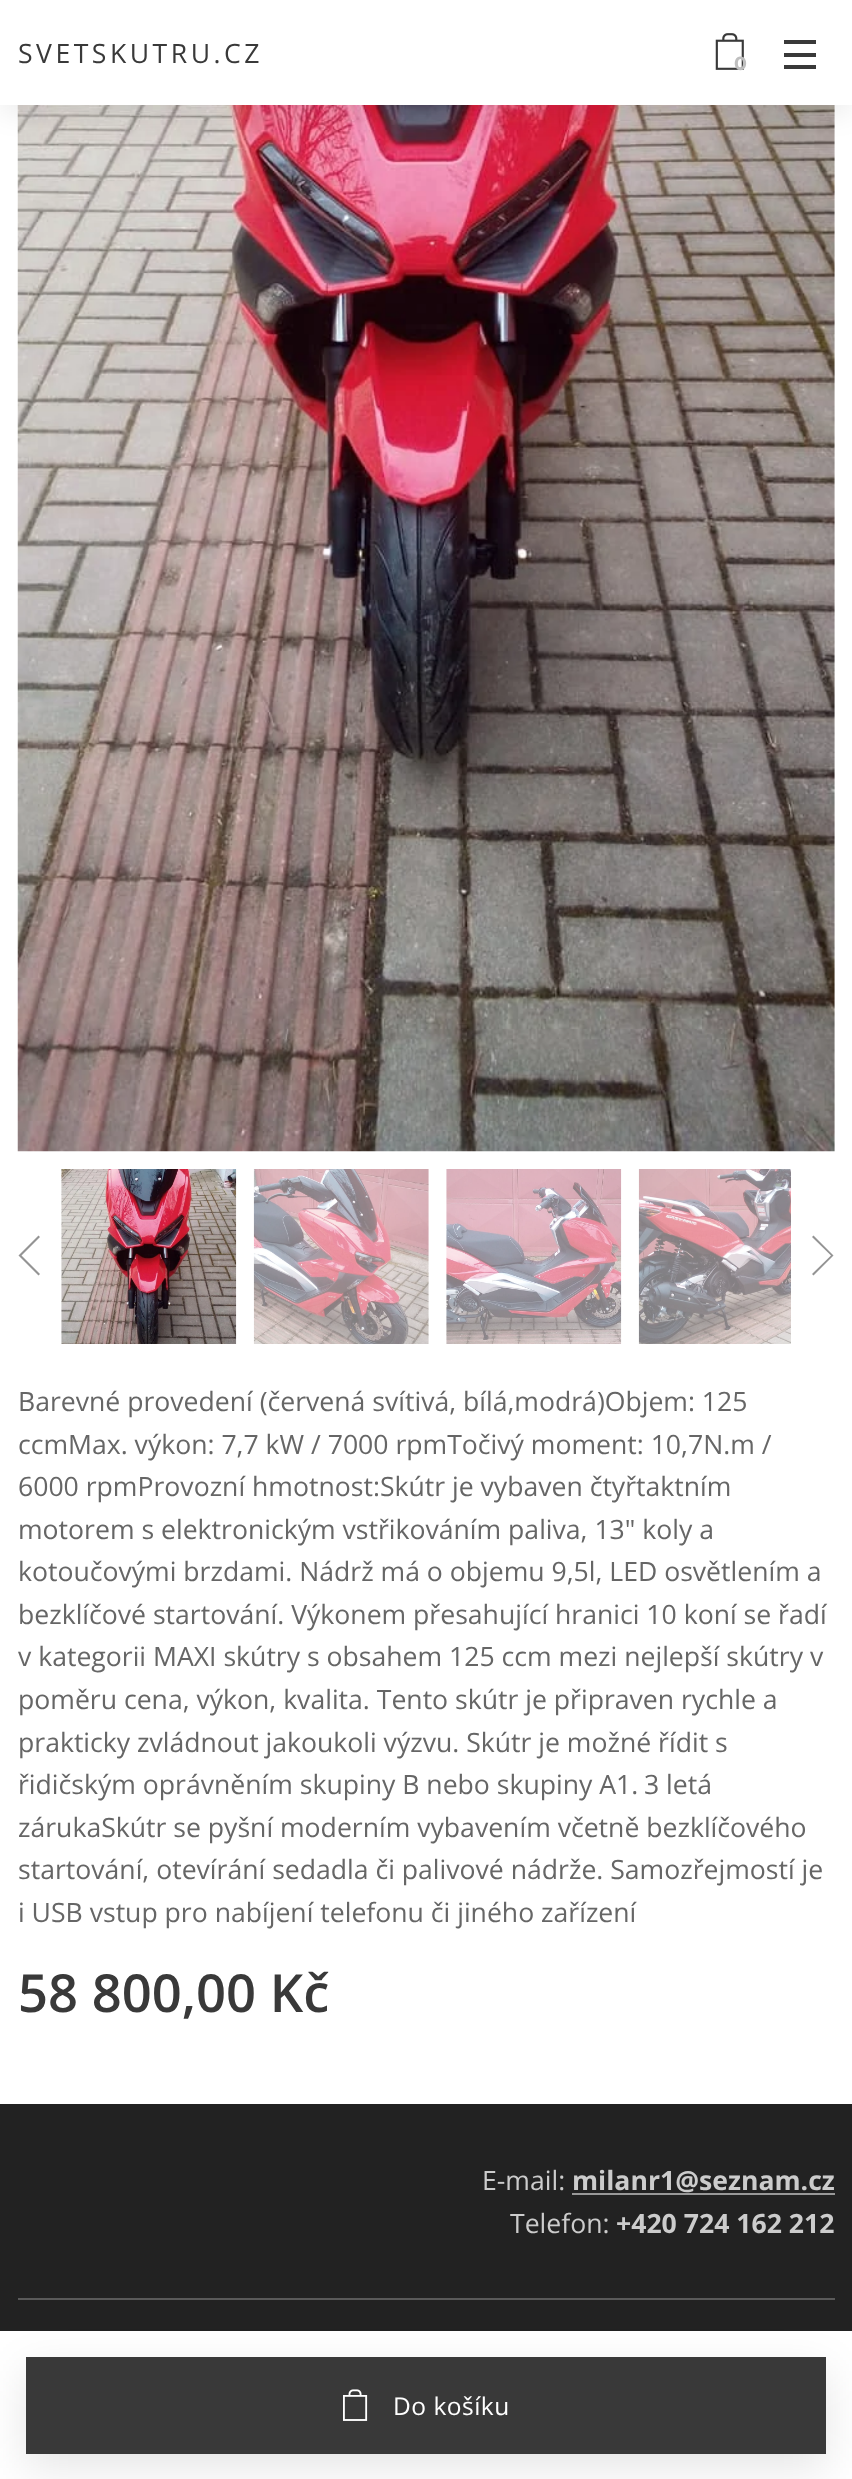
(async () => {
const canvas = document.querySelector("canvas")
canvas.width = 852
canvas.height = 2479
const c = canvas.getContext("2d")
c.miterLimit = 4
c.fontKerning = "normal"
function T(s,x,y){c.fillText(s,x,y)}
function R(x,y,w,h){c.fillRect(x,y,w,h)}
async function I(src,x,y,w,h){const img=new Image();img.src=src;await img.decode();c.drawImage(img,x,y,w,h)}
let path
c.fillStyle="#fff"
R(0,0,852,2479)
await I("2.png",17,105,818,1047)
c.fillStyle="#00000012"
c.filter="blur(13px)"
c.beginPath()
c.rect(0,9,852,105)
c.fill()
c.filter="none"
c.fillStyle="#fff"
R(0,0,852,105)
c.letterSpacing="3.5px"
c.font="26.6px Open Sans"
c.fillStyle="#393939"
T("SVETSKUTRU.CZ",18,63)
await I("1.png",715,33,29,37)
c.letterSpacing="0px"
c.font="bold 19px Montserrat"
c.fillStyle="#bfbfbf"
T("0",734,70)
c.fillStyle="#393939"
R(784,53,32,4)
R(784,40,32,4)
R(784,65,32,4)
c.fillStyle="#949494"
path = new Path2D("M38.5 1275.5l1.5-1.5l-18.5-18.5l18.5-18.5l-1.5-1.5l-20 20z")
c.fill(path)
await I("3.png",61,1169,176,175)
await I("4.png",253,1169,176,175)
await I("5.png",446,1169,176,175)
await I("6.png",638,1169,153,175)
path = new Path2D("M813.5 1235.5l-1.5 1.5l19 18.5l-19 18.5l1.5 1.5l20-20z")
c.fill(path)
c.font="26.6px Open Sans"
c.fillStyle="#666"
T("Barevné provedení (červená svítivá, bílá,modrá)Objem: 125",18,1411)
T("ccmMax. výkon: 7,7 kW / 7000 rpmTočivý moment: 10,7N.m /",18,1454)
T("6000 rpmProvozní hmotnost:Skútr je vybaven čtyřtaktním",18,1496)
T("motorem s elektronickým vstřikováním paliva, 13\" koly a",18,1539)
T("kotoučovými brzdami. Nádrž má o objemu 9,5l, LED osvětlením a",18,1581)
T("bezklíčové startování. Výkonem přesahující hranici 10 koní se řadí",18,1624)
T("v kategorii MAXI skútry s obsahem 125 ccm mezi nejlepší skútry v",18,1666)
T("poměru cena, výkon, kvalita. Tento skútr je připraven rychle a",18,1709)
T("prakticky zvládnout jakoukoli výzvu. Skútr je možné řídit s",18,1752)
T("řidičským oprávněním skupiny B nebo skupiny A1.",18,1794)
T("3 letá",644,1794)
T("zárukaSkútr se pyšní moderním vybavením včetně bezklíčového",18,1837)
T("startování, otevírání sedadla či palivové nádrže. Samozřejmostí je",18,1879)
T("i USB vstup pro nabíjení telefonu či jiného zařízení",18,1922)
c.font="600 52.5px Open Sans"
c.fillStyle="#393939"
T("58 800,00 Kč",18,2012)
c.fillStyle="#222"
R(0,2104,852,227)
c.fillStyle="#0000001a"
c.filter="blur(22px)"
c.beginPath()
c.rect(26,2371,800,97)
c.fill()
c.filter="none"
c.fillStyle="#393939"
R(26,2357,800,97)
await I("7.png",343,2389,25,32)
c.letterSpacing="0.5px"
c.font="24.5px Open Sans"
c.fillStyle="#fff"
T("Do košíku",393,2415)
c.letterSpacing="0px"
c.font="26.6px Open Sans"
c.fillStyle="#ccc"
T("E-mail:",482,2190)
c.font="bold 26.6px Open Sans"
T("milanr1@seznam.cz",572,2190)
c.fillStyle="#999"
R(572,2193,263,2)
c.font="26.6px Open Sans"
c.fillStyle="#ccc"
T("Telefon:",510,2233)
c.font="bold 26.6px Open Sans"
T("+420 724 162 212",616,2233)
c.fillStyle="#5a5a5a"
R(18,2298,817,2)
})()
